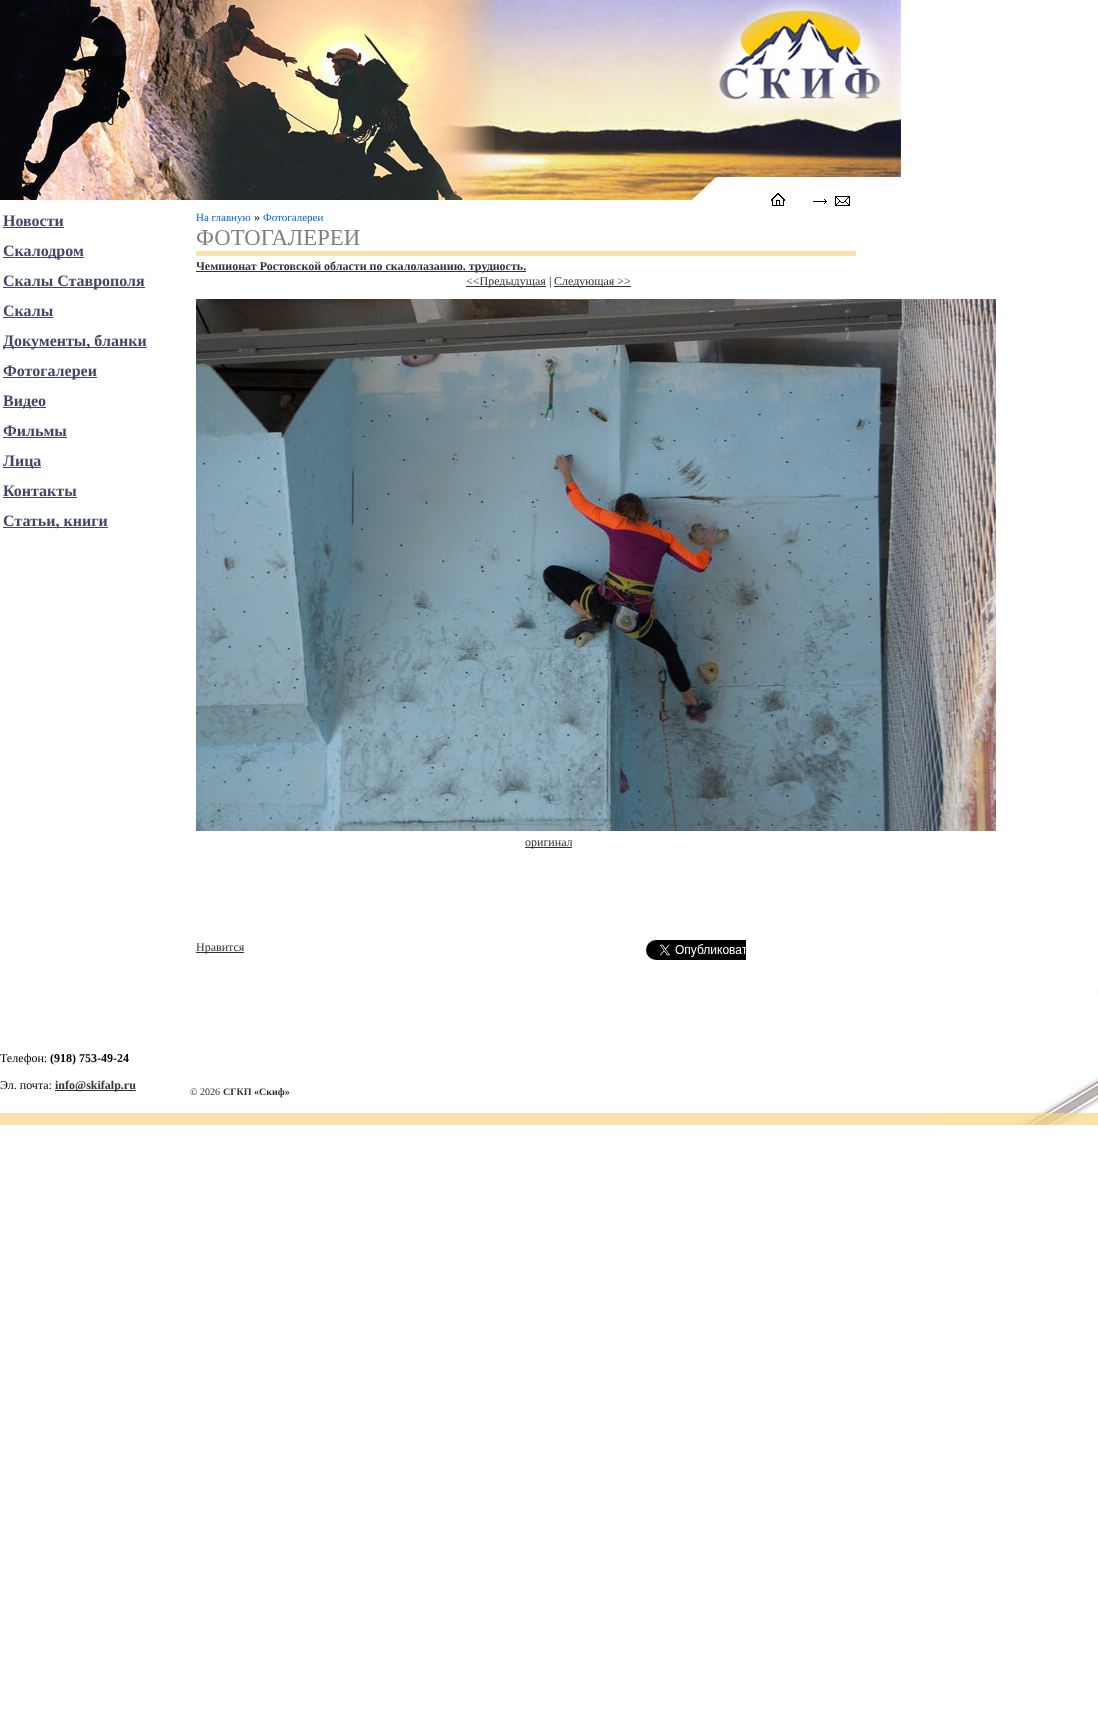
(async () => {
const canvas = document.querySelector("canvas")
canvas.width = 1098
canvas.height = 1735
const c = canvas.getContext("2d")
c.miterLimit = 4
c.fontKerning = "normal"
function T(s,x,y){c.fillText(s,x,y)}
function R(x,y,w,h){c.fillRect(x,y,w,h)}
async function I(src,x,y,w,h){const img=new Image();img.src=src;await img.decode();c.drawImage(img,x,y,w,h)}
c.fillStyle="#fff"
R(0,0,1098,1735)
await I("1.png",0,0,716,200)
await I("2.png",716,0,185,178)
await I("3.png",771,193,14,13)
await I("4.png",813,196,37,10)
c.font="bold 16px Liberation Serif"
c.fillStyle="#42466b"
T("Новости",3,226)
R(3,227,61,1)
R(3,257,81,1)
T("Скалодром",3,256)
R(3,287,142,1)
T("Скалы Ставрополя",3,286)
T("Скалы",3,316)
R(3,317,50,1)
R(3,347,144,1)
T("Документы, бланки",3,346)
R(3,377,94,1)
T("Фотогалереи",3,376)
R(3,407,43,1)
T("Видео",3,406)
T("Фильмы",3,436)
R(3,437,64,1)
R(3,467,38,1)
T("Лица",3,466)
T("Контакты",3,496)
R(3,497,74,1)
R(3,527,105,1)
T("Статьи, книги",3,526)
c.font="11px Liberation Serif"
c.fillStyle="#0065d6"
T("На главную",196,221)
c.font="12px Liberation Serif"
c.fillStyle="#000"
T("»",254,221)
c.font="11px Liberation Serif"
c.fillStyle="#0065d6"
T("Фотогалереи",263,221)
c.font="22.75px Liberation Serif"
c.fillStyle="#808080"
T("ФОТОГАЛЕРЕИ",196,245)
c.fillStyle="#f7e2ad"
R(196,251,660,5)
c.fillStyle="#333"
R(196,271,330,1)
c.font="bold 12px Liberation Serif"
T("Чемпионат Ростовской области по скалолазанию. трудность.",196,270)
R(466,286,80,1)
c.font="12px Liberation Serif"
T("<<Предыдущая",466,285)
c.fillStyle="#000"
T("|",549,285)
c.fillStyle="#333"
R(554,286,77,1)
T("Следующая >>",554,285)
await I("5.png",196,299,800,532)
R(525,847,47,1)
T("оригинал",525,846)
R(196,952,48,1)
T("Нравится",196,951)
await I("6.png",646,940,100,20)
c.fillStyle="#f7e2ad"
R(0,1113,940,12)
c.fillStyle="#000"
T("Телефон:",0,1062)
c.font="bold 12px Liberation Serif"
T("(918) 753-49-24",50,1062)
c.font="12px Liberation Serif"
T("Эл. почта:",0,1089)
c.fillStyle="#333"
R(55,1090,81,1)
c.font="bold 12px Liberation Serif"
T("info@skifalp.ru",55,1089)
await I("7.png",940,964,158,161)
c.font="10px Liberation Serif"
T("© 2026",190,1095)
c.font="bold 10px Liberation Serif"
T("СГКП «Скиф»",223,1095)
})()
